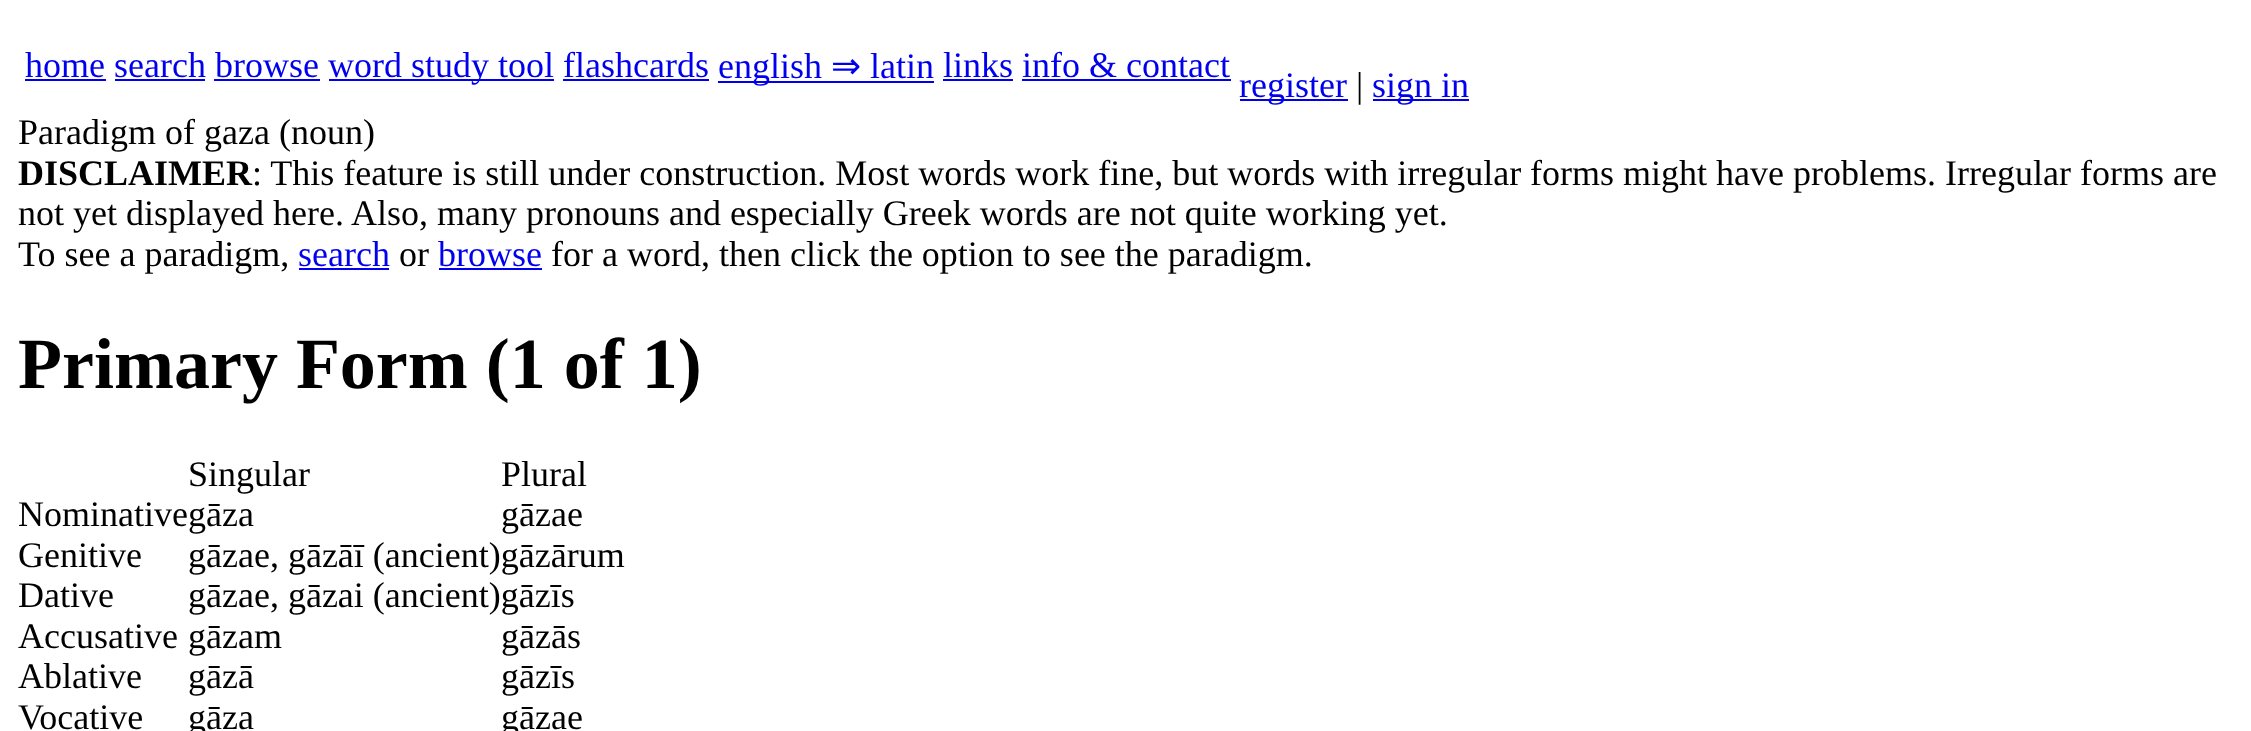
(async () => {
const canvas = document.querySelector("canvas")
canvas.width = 2251
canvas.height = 731
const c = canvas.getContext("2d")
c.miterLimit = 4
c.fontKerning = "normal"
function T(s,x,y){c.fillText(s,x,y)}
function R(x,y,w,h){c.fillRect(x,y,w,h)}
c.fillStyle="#fff"
R(0,0,2251,731)
c.font="36px Liberation Serif"
c.fillStyle="#00e"
T("home search browse word",25,77)
R(25,79,81,2)
R(329,79,225,2)
T("study tool flashcards",411,77)
R(718,81,216,2)
T("english",718,78)
c.font="36px DejaVu Sans"
T("⇒",831,78)
c.font="36px Liberation Serif"
T("latin",870,78)
T("links info & contact",943,77)
R(943,79,70,2)
R(1240,99,108,2)
T("register",1239,97)
c.fillStyle="#000"
T("|",1356,97)
c.fillStyle="#00e"
R(1373,99,96,2)
T("sign in",1372,97)
R(115,79,90,2)
R(214,79,106,2)
R(563,79,146,2)
R(1022,79,209,2)
c.fillStyle="#000"
T("Paradigm of gaza (noun)",18,144)
c.font="bold 36px Liberation Serif"
T("DISCLAIMER",18,185)
c.font="36px Liberation Serif"
T(": This feature is still under construction. Most words work fine, but words with irregular forms might have problems. Irregular forms are",252,185)
T("not yet displayed here. Also, many pronouns and especially Greek words are not quite working yet.",18,225)
T("To see a paradigm,",18,266)
c.fillStyle="#00e"
T("search",298,266)
R(299,268,90,2)
c.fillStyle="#000"
T("or",399,266)
c.fillStyle="#00e"
T("browse",438,266)
R(439,268,103,2)
c.fillStyle="#000"
T("for a word, then click the option to see the paradigm.",551,266)
c.font="bold 72px Liberation Serif"
T("Primary Form (1 of 1)",18,388)
c.font="36px Liberation Serif"
T("Singular",188,486)
T("Plural",501,486)
T("Nominativegāza",18,526)
T("gāzae",501,526)
T("Genitive",18,567)
T("gāzae, gāzāī (ancient)gāzārum",188,567)
T("Dative",18,607)
T("gāzae, gāzai (ancient)gāzīs",188,607)
T("Accusative",18,648)
T("gāzam",188,648)
T("gāzās",501,648)
T("Ablative",18,688)
T("gāzā",188,688)
T("gāzīs",501,688)
T("Vocative",18,729)
T("gāza",188,729)
T("gāzae",501,729)
})()
